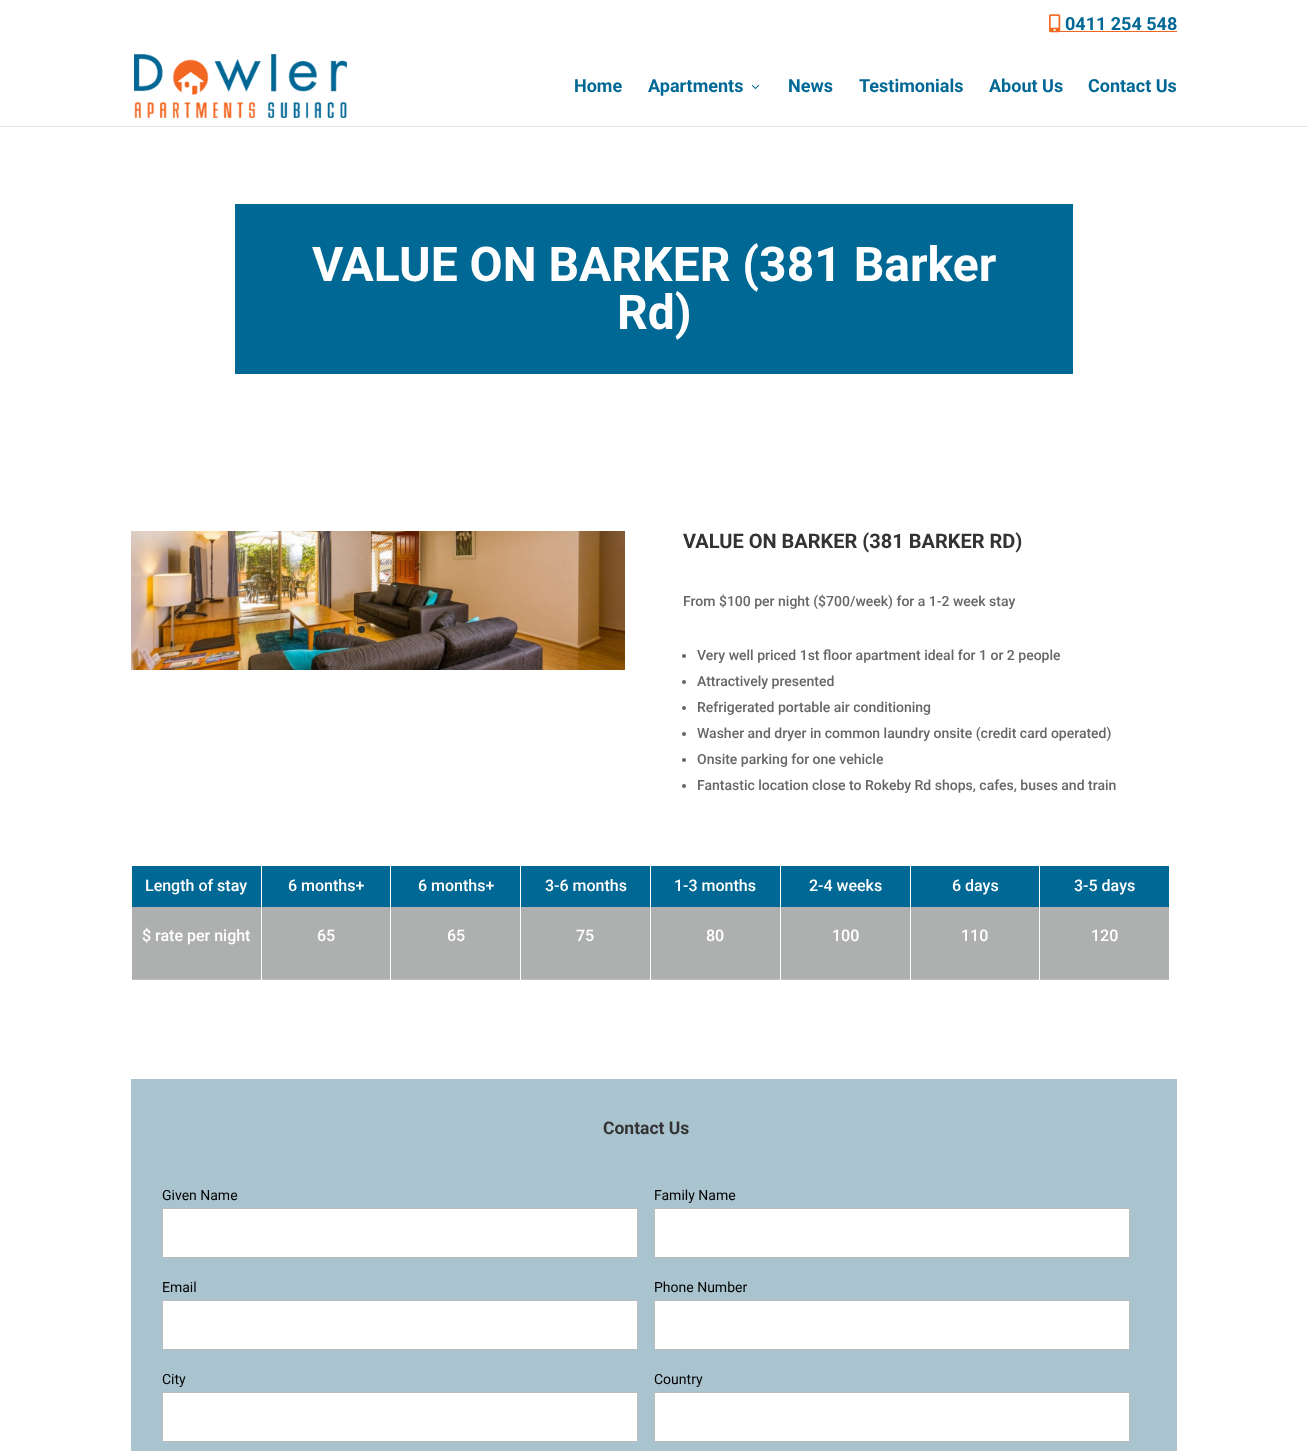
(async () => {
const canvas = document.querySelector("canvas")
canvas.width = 1308
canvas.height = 1451
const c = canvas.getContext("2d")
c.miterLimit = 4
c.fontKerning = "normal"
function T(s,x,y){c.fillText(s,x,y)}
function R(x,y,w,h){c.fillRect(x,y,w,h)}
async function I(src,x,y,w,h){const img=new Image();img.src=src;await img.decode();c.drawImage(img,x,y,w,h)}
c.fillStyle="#fff"
R(0,0,1308,1451)
await I("1.png",1049,14,12,19)
c.font="bold 18px Roboto"
c.fillStyle="#006895"
T("0411 254 548",1065,30)
c.fillStyle="#f26722"
R(1060,31,117,1)
c.fillStyle="#e6e6e6"
R(0,126,1308,1)
await I("2.png",134,54,213,64)
c.fillStyle="#006895"
T("Home",574,92)
T("Apartments",648,92)
await I("3.png",751,84,9,5)
T("News",788,92)
T("Testimonials",859,92)
T("About Us",989,92)
T("Contact Us",1088,92)
R(235,204,838,170)
c.font="bold 48px Roboto"
c.fillStyle="#fff"
T("VALUE ON BARKER (381 Barker",312,281)
T("Rd)",617,329)
await I("4.png",131,531,494,139)
c.fillStyle="#333"
c.beginPath()
c.arc(361.5,629.5,3.5,0,7)
c.fill()
c.fillStyle="#00000026"
c.beginPath()
c.arc(378.5,629.5,3.5,0,7)
c.fill()
c.beginPath()
c.arc(395.5,629.5,3.5,0,7)
c.fill()
c.font="bold 20px Roboto"
c.fillStyle="#333"
T("VALUE ON BARKER (381 BARKER RD)",683,548)
c.font="500 14px Roboto"
c.fillStyle="#666"
T("From $100 per night ($700/week) for a 1-2 week stay",683,606)
c.beginPath()
c.arc(684,656,2,0,7)
c.fill()
T("Very well priced 1st floor apartment ideal for 1 or 2 people",697,660)
c.beginPath()
c.arc(684,682,2,0,7)
c.fill()
T("Attractively presented",697,686)
c.beginPath()
c.arc(684,708,2,0,7)
c.fill()
T("Refrigerated portable air conditioning",697,712)
c.beginPath()
c.arc(684,734,2,0,7)
c.fill()
T("Washer and dryer in common laundry onsite (credit card operated)",697,738)
c.beginPath()
c.arc(684,760,2,0,7)
c.fill()
T("Onsite parking for one vehicle",697,764)
c.beginPath()
c.arc(684,786,2,0,7)
c.fill()
T("Fantastic location close to Rokeby Rd shops, cafes, buses and train",697,790)
c.fillStyle="#006895"
R(132,866,129,41)
c.font="500 16px Roboto"
c.fillStyle="#fff"
T("Length of stay",145,891)
c.fillStyle="#aeb0b0"
R(132,907,129,72)
c.fillStyle="#bebebe"
R(132,979,129,1)
c.fillStyle="#fff"
T("$ rate per night",142,941)
c.fillStyle="#006895"
R(262,866,128,41)
c.fillStyle="#fff"
T("6 months+",288,891)
c.fillStyle="#aeb0b0"
R(262,907,128,72)
c.fillStyle="#bebebe"
R(262,979,128,1)
c.fillStyle="#fff"
T("65",317,941)
c.fillStyle="#006895"
R(391,866,129,41)
c.fillStyle="#fff"
T("6 months+",418,891)
c.fillStyle="#aeb0b0"
R(391,907,129,72)
c.fillStyle="#bebebe"
R(391,979,129,1)
c.fillStyle="#fff"
T("65",447,941)
c.fillStyle="#006895"
R(521,866,129,41)
c.fillStyle="#fff"
T("3-6 months",545,891)
c.fillStyle="#aeb0b0"
R(521,907,129,72)
c.fillStyle="#bebebe"
R(521,979,129,1)
c.fillStyle="#fff"
T("75",576,941)
c.fillStyle="#006895"
R(651,866,129,41)
c.fillStyle="#fff"
T("1-3 months",674,891)
c.fillStyle="#aeb0b0"
R(651,907,129,72)
c.fillStyle="#bebebe"
R(651,979,129,1)
c.fillStyle="#fff"
T("80",706,941)
c.fillStyle="#006895"
R(781,866,129,41)
c.fillStyle="#fff"
T("2-4 weeks",809,891)
c.fillStyle="#aeb0b0"
R(781,907,129,72)
c.fillStyle="#bebebe"
R(781,979,129,1)
c.fillStyle="#fff"
T("100",832,941)
c.fillStyle="#006895"
R(911,866,128,41)
c.fillStyle="#fff"
T("6 days",952,891)
c.fillStyle="#aeb0b0"
R(911,907,128,72)
c.fillStyle="#bebebe"
R(911,979,128,1)
c.fillStyle="#fff"
T("110",961,941)
c.fillStyle="#006895"
R(1040,866,129,41)
c.fillStyle="#fff"
T("3-5 days",1074,891)
c.fillStyle="#aeb0b0"
R(1040,907,129,72)
c.fillStyle="#bebebe"
R(1040,979,129,1)
c.fillStyle="#fff"
T("120",1091,941)
c.fillStyle="#aac4cf"
R(131,1079,1046,372)
c.font="bold 17.5px Roboto"
c.fillStyle="#333"
T("Contact Us",603,1134)
c.font="14px Roboto"
c.fillStyle="#000"
T("Given Name",162,1200)
c.fillStyle="#fff"
c.beginPath()
c.rect(162.5,1208.5,475,49)
c.fill()
c.strokeStyle="#bbb"
c.stroke()
c.fillStyle="#000"
T("Family Name",654,1200)
c.fillStyle="#fff"
c.beginPath()
c.rect(654.5,1208.5,475,49)
c.fill()
c.stroke()
c.fillStyle="#000"
T("Email",162,1292)
c.fillStyle="#fff"
c.beginPath()
c.rect(162.5,1300.5,475,49)
c.fill()
c.stroke()
c.fillStyle="#000"
T("Phone Number",654,1292)
c.fillStyle="#fff"
c.beginPath()
c.rect(654.5,1300.5,475,49)
c.fill()
c.stroke()
c.fillStyle="#000"
T("City",162,1384)
c.fillStyle="#fff"
c.beginPath()
c.rect(162.5,1392.5,475,49)
c.fill()
c.stroke()
c.fillStyle="#000"
T("Country",654,1384)
c.fillStyle="#fff"
c.beginPath()
c.rect(654.5,1392.5,475,49)
c.fill()
c.stroke()
})()
